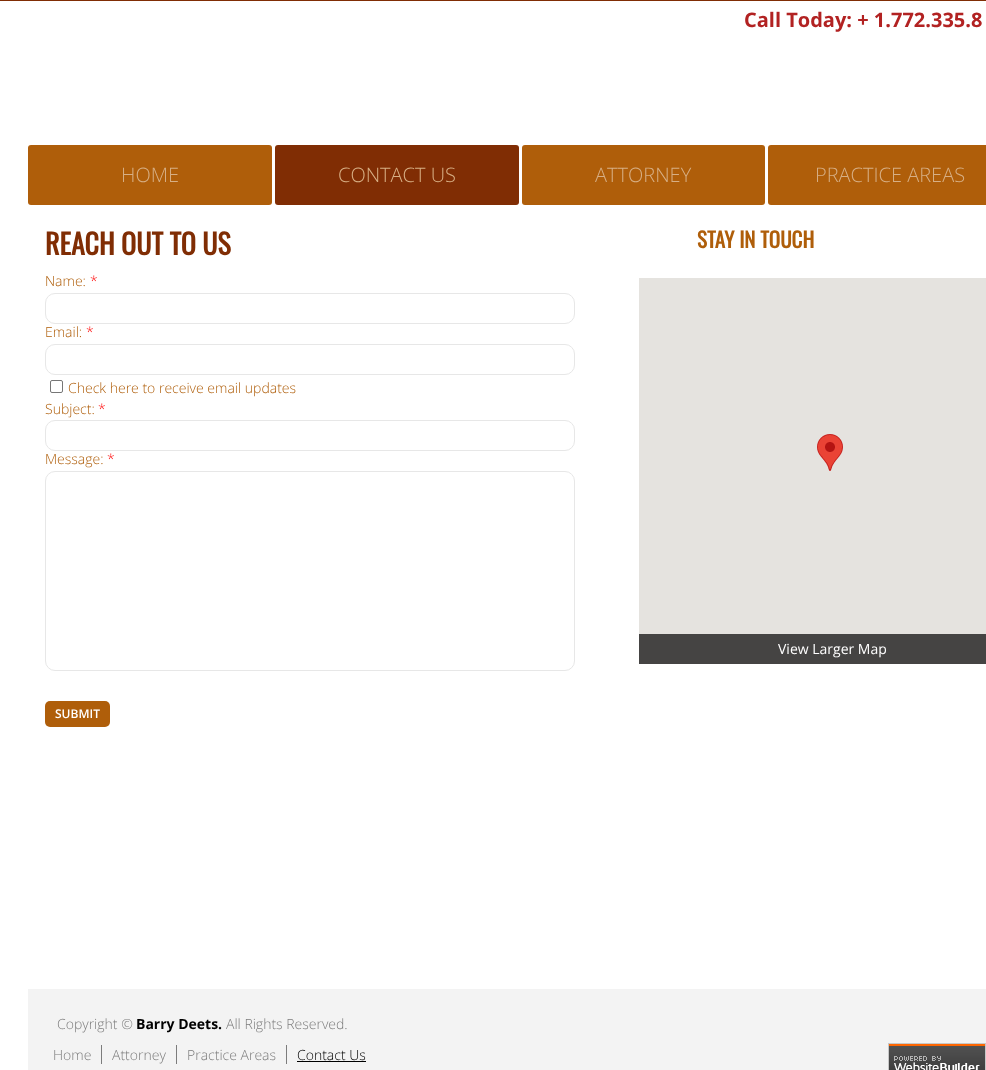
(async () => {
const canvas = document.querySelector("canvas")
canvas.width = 986
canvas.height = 1070
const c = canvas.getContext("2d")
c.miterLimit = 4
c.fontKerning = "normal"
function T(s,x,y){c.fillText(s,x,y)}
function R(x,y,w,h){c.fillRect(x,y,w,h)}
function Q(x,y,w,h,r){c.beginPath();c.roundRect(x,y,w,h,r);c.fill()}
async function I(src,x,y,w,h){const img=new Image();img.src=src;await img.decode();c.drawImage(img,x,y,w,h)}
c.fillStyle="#fff"
R(0,0,986,1070)
c.fillStyle="#802d04"
R(0,0,986,1)
c.font="bold 20px Open Sans"
c.fillStyle="#b22222"
T("Call Today: + 1.772.335.8",744,27)
c.fillStyle="#af5e0a"
Q(28,145,244,60,3)
c.font="300 20px Open Sans"
c.fillStyle="#d7af85"
T("HOME",121,182)
c.fillStyle="#802d04"
Q(275,145,244,60,3)
c.fillStyle="#d7af85"
T("CONTACT US",338,182)
c.fillStyle="#af5e0a"
Q(522,145,243,60,3)
c.fillStyle="#d7af85"
T("ATTORNEY",595,182)
c.fillStyle="#af5e0a"
c.beginPath()
c.roundRect(768,145,218,60,[3,0,0,3])
c.fill()
c.fillStyle="#d7af85"
T("PRACTICE AREAS",815,182)
c.font="bold 28px Oswald"
c.fillStyle="#802d04"
T("REACH OUT TO US",45,255)
c.font="bold 21px Oswald"
c.fillStyle="#af5e0a"
T("STAY IN TOUCH",697,248)
c.font="300 14px Open Sans"
T("Name:",45,286)
c.fillStyle="#f00"
T("*",90,286)
c.beginPath()
c.roundRect(45.5,293.5,529,30,9.5)
c.strokeStyle="#e7e7e7"
c.stroke()
c.fillStyle="#af5e0a"
T("Email:",45,337)
c.fillStyle="#f00"
T("*",86,337)
c.beginPath()
c.roundRect(45.5,344.5,529,30,9.5)
c.stroke()
c.beginPath()
c.roundRect(50.5,380.5,12,12,1.5)
c.strokeStyle="#767676"
c.stroke()
c.fillStyle="#af5e0a"
T("Check here to receive email updates",68,393)
T("Subject:",45,414)
c.fillStyle="#f00"
T("*",98,414)
c.beginPath()
c.roundRect(45.5,420.5,529,30,9.5)
c.strokeStyle="#e7e7e7"
c.stroke()
c.fillStyle="#af5e0a"
T("Message:",45,464)
c.fillStyle="#f00"
T("*",107,464)
c.beginPath()
c.roundRect(45.5,471.5,529,199,9.5)
c.stroke()
c.fillStyle="#af5e0a"
Q(45,701,65,26,5)
c.font="600 12px Open Sans"
c.fillStyle="#fff"
T("SUBMIT",55,718)
c.fillStyle="#e5e3df"
R(639,278,347,356)
await I("1.png",817,434,26,37)
c.fillStyle="#454443"
R(639,634,347,30)
c.font="14px Open Sans"
c.fillStyle="#fff"
T("View Larger Map",778,654)
c.fillStyle="#f3f3f3"
R(28,989,958,81)
c.font="300 14px Open Sans"
c.fillStyle="#7c7c7c"
T("Copyright ©",57,1029)
c.font="bold 14px Open Sans"
c.fillStyle="#000"
T("Barry Deets.",136,1029)
c.font="300 14px Open Sans"
c.fillStyle="#7c7c7c"
T("All Rights Reserved.",226,1029)
T("Home",53,1060)
R(101,1045,1,19)
T("Attorney",112,1060)
R(176,1045,1,19)
T("Practice Areas",187,1060)
R(286,1045,1,19)
c.fillStyle="#000"
T("Contact Us",297,1060)
R(297,1061,69,1)
await I("2.png",888,1043,98,27)
})()
